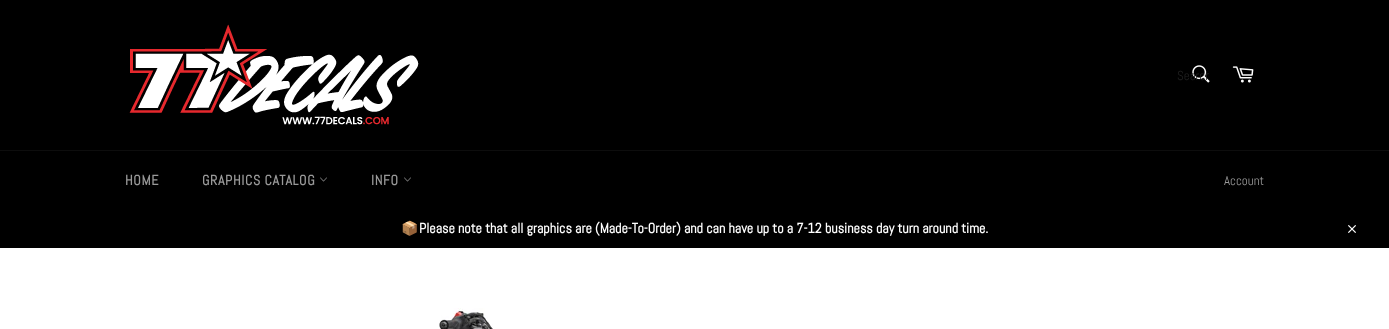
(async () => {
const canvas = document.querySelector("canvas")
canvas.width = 1389
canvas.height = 329
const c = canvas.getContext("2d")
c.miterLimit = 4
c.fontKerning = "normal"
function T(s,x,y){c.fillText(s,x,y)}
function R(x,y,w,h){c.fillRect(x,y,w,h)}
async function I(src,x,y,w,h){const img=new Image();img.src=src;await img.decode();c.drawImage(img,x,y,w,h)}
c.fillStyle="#fff"
R(0,0,1389,329)
c.fillStyle="#000"
R(0,0,1389,248)
await I("1.png",129,24,290,101)
await I("2.png",1192,65,18,18)
c.save()
c.beginPath()
c.rect(1177,67,32,17)
c.clip()
c.font="13px Abel"
c.fillStyle="#202020"
T("Search",1177,80)
c.restore()
await I("3.png",1232,66,22,17)
c.fillStyle="#0d0d0d"
R(0,150,1389,1)
c.letterSpacing="0.6px"
c.font="bold 14px Abel"
c.fillStyle="#999"
T("HOME",125,185)
T("GRAPHICS CATALOG",202,185)
await I("4.png",320,177,7,5)
T("INFO",371,185)
await I("4.png",404,177,7,5)
c.letterSpacing="0px"
c.font="13px Abel"
T("Account",1224,185)
c.font="bold 14px Noto Color Emoji"
c.fillStyle="#fff"
T("📦",401,233)
c.font="bold 14px Abel"
T("Please note that all graphics are (Made-To-Order) and can have up to a 7-12 business day turn around time.",419,233)
await I("5.png",1348,225,8,8)
await I("6.png",439,308,54,21)
})()
